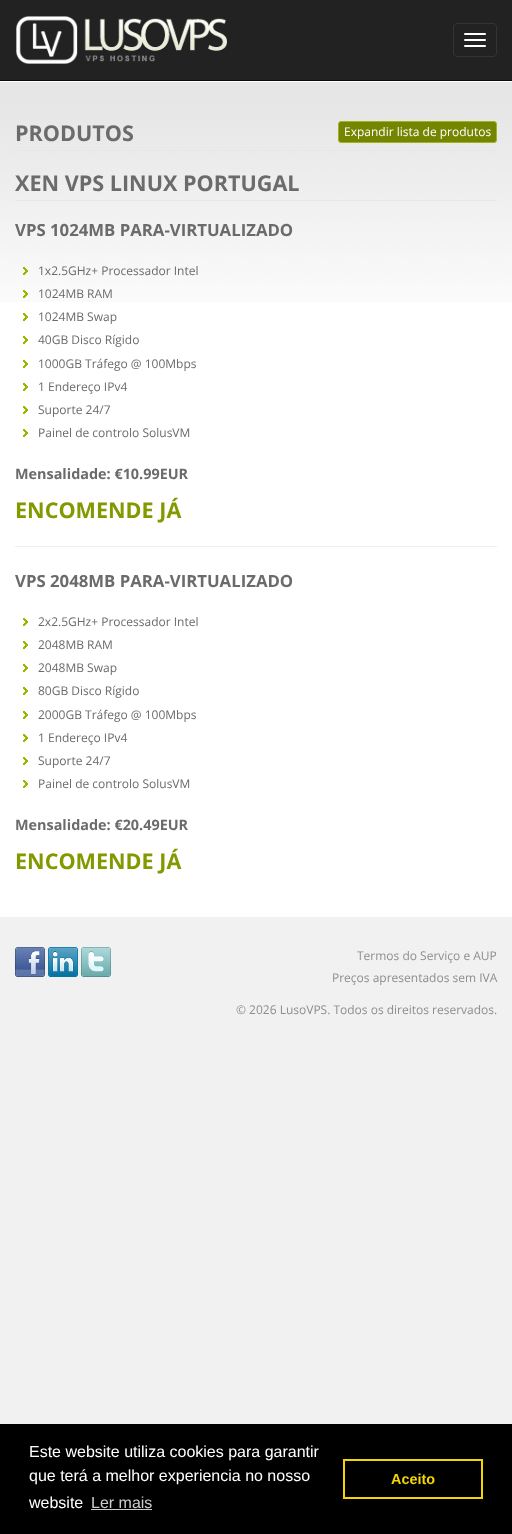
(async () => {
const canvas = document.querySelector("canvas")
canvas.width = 512
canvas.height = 1534
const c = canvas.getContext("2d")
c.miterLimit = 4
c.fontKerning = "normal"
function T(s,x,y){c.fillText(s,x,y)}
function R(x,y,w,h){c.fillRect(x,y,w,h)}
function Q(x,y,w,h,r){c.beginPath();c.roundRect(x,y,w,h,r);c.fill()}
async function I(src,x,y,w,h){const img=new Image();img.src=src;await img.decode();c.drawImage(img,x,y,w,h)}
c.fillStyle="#f1f1f1"
R(0,0,512,1534)
c.fillStyle="#222"
R(0,0,512,80)
c.fillStyle="#090909"
R(0,80,512,1)
await I("1.png",16,16,211,48)
c.beginPath()
c.roundRect(453.5,23.5,43,33,3.5)
c.strokeStyle="#333"
c.stroke()
c.fillStyle="#fff"
Q(464,33,22,2,1)
Q(464,39,22,2,1)
Q(464,45,22,2,1)
R(0,81,512,836)
await I("2.png",0,82,512,220)
c.fillStyle="#e8e7e7"
R(15,150,482,1)
c.font="bold 21.6px Open Sans"
c.fillStyle="#6b6b6b"
T("PRODUTOS",15,141)
c.fillStyle="#748600"
c.beginPath()
c.roundRect(338.5,121.5,158,21,2.5)
c.fill()
c.strokeStyle="#a0b41f"
c.stroke()
c.font="12px Open Sans"
c.fillStyle="#fff"
T("Expandir lista de produtos",344,136)
c.fillStyle="#e8e7e7"
R(15,200,482,1)
c.font="bold 21.6px Open Sans"
c.fillStyle="#6b6b6b"
T("XEN VPS LINUX PORTUGAL",15,191)
c.font="bold 16.75px Open Sans"
T("VPS 1024MB PARA-VIRTUALIZADO",15,236)
await I("3.png",23,267,5,8)
c.font="12px Open Sans"
T("1x2.5GHz+ Processador Intel",38,275)
await I("4.png",23,290,5,8)
T("1024MB RAM",38,298)
await I("5.png",23,313,5,8)
T("1024MB Swap",38,321)
await I("5.png",23,336,5,8)
T("40GB Disco Rígido",38,344)
await I("5.png",23,360,5,8)
T("1000GB Tráfego @ 100Mbps",38,368)
await I("5.png",23,383,5,8)
T("1 Endereço IPv4",38,391)
await I("5.png",23,406,5,8)
T("Suporte 24/7",38,414)
await I("5.png",23,429,5,8)
T("Painel de controlo SolusVM",38,437)
c.font="bold 14.4px Open Sans"
T("Mensalidade: €10.99EUR",15,479)
c.font="bold 21.6px Open Sans"
c.fillStyle="#849900"
T("ENCOMENDE JÁ",15,518)
c.fillStyle="#eee"
R(15,546,482,1)
c.font="bold 16.75px Open Sans"
c.fillStyle="#6b6b6b"
T("VPS 2048MB PARA-VIRTUALIZADO",15,587)
await I("5.png",23,618,5,8)
c.font="12px Open Sans"
T("2x2.5GHz+ Processador Intel",38,626)
await I("5.png",23,641,5,8)
T("2048MB RAM",38,649)
await I("5.png",23,664,5,8)
T("2048MB Swap",38,672)
await I("5.png",23,687,5,8)
T("80GB Disco Rígido",38,695)
await I("5.png",23,711,5,8)
T("2000GB Tráfego @ 100Mbps",38,719)
await I("5.png",23,734,5,8)
T("1 Endereço IPv4",38,742)
await I("5.png",23,757,5,8)
T("Suporte 24/7",38,765)
await I("5.png",23,780,5,8)
T("Painel de controlo SolusVM",38,788)
c.font="bold 14.4px Open Sans"
T("Mensalidade: €20.49EUR",15,830)
c.font="bold 21.6px Open Sans"
c.fillStyle="#849900"
T("ENCOMENDE JÁ",15,869)
await I("6.png",15,947,30,30)
await I("7.png",48,947,30,30)
await I("8.png",81,947,30,30)
c.font="12px Open Sans"
c.fillStyle="#8e8e8e"
T("Termos do Serviço e AUP",357,960)
T("Preços apresentados sem IVA",332,982)
T("© 2026 LusoVPS. Todos os direitos reservados.",236,1014)
c.fillStyle="#000"
R(0,1424,512,110)
c.font="16px Liberation Sans"
c.fillStyle="#fff"
T("Este website utiliza cookies para garantir",29,1457)
T("que terá a melhor experiencia no nosso",29,1481)
T("website",29,1508)
c.fillStyle="#ccc"
T("Ler mais",91,1508)
R(91,1509,61,1)
c.strokeStyle="#f1d600"
c.lineWidth=2
c.strokeRect(344,1460,138,38)
c.font="bold 14.4px Liberation Sans"
c.fillStyle="#f1d600"
T("Aceito",391,1484)
})()
